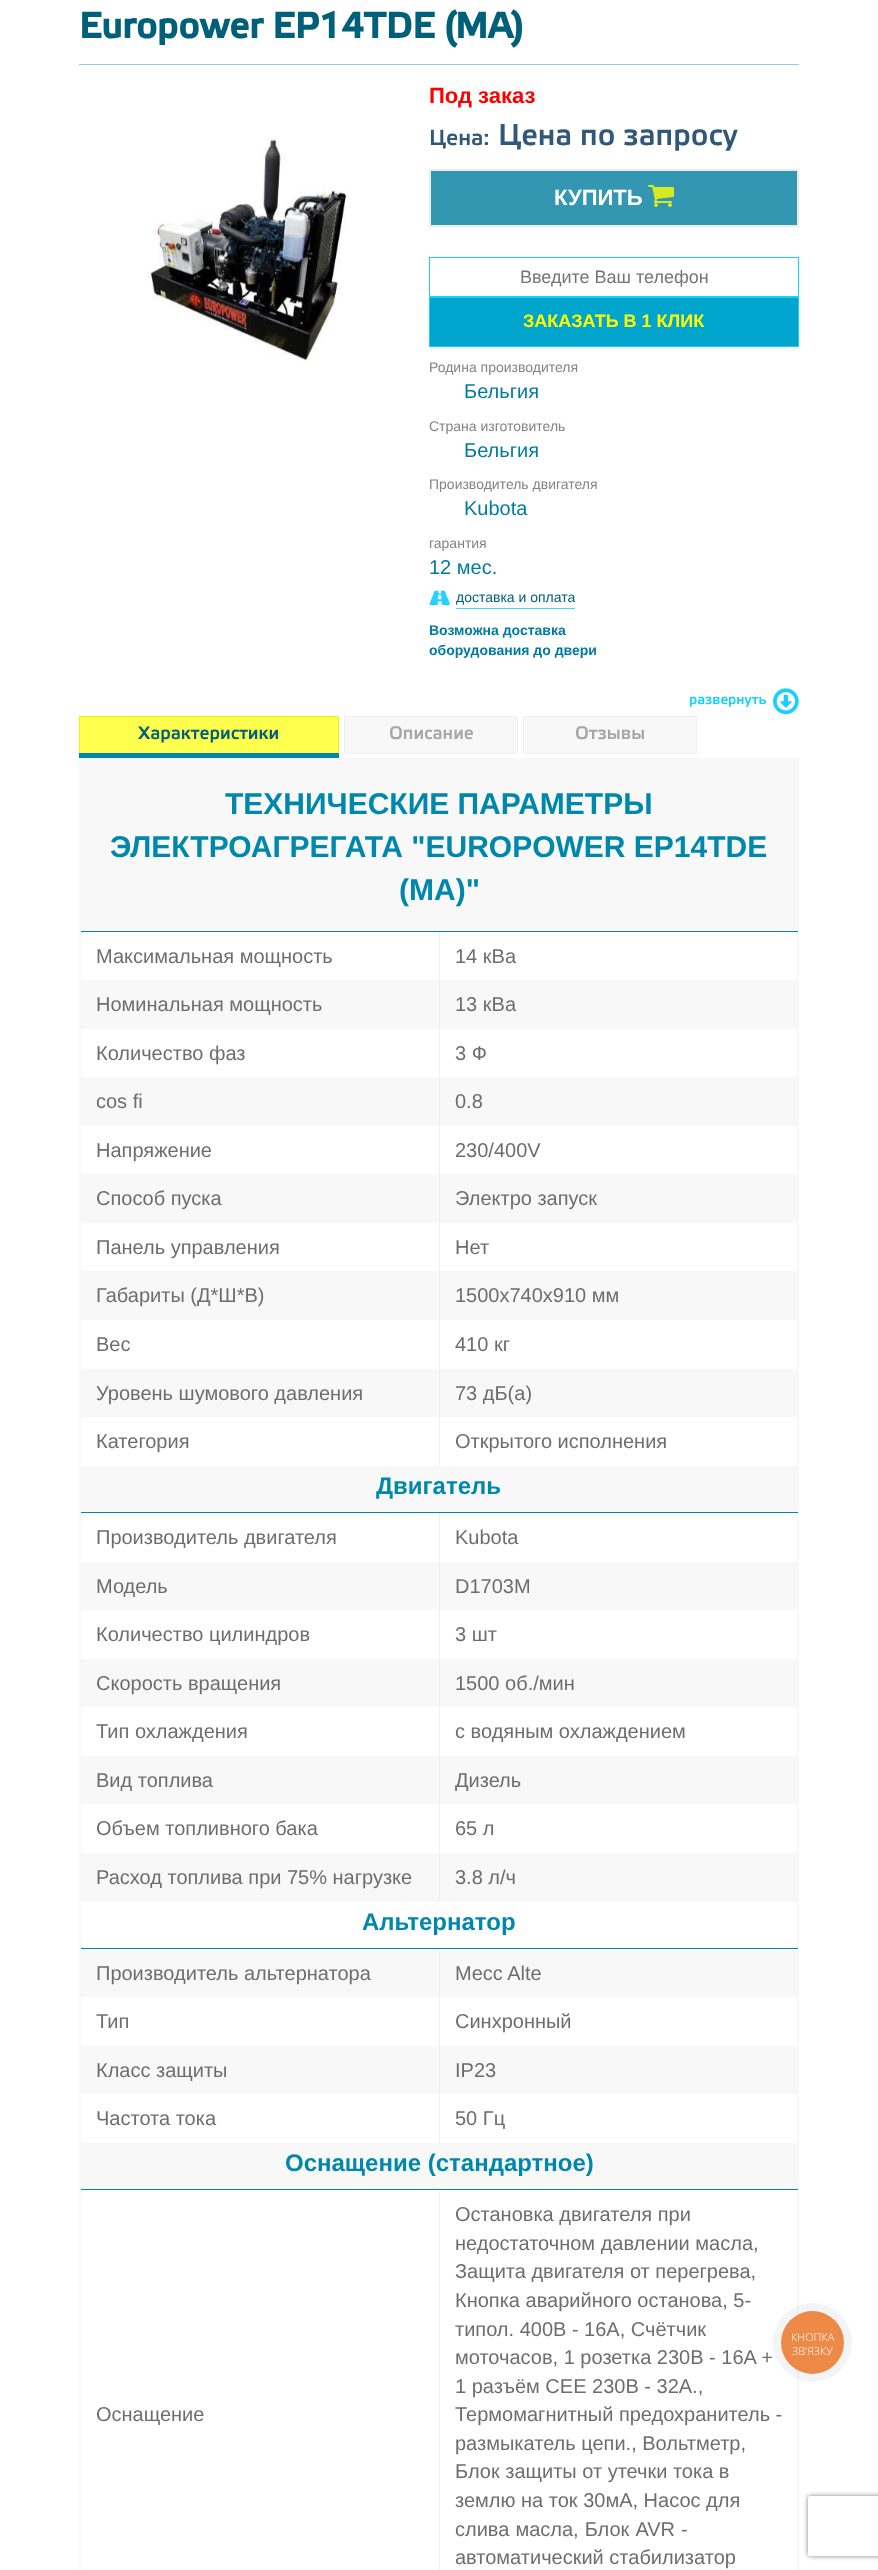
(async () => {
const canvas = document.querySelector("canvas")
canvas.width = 878
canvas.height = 2570
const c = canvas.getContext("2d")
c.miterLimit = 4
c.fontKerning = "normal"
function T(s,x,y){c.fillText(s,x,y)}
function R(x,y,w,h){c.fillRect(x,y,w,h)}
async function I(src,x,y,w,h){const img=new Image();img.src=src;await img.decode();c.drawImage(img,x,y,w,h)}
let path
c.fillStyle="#fff"
R(0,0,878,2570)
c.font="bold 36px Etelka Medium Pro"
c.fillStyle="#006079"
T("Europower EP14TDE (MA)",79,38)
c.fillStyle="#99cddb"
R(79,64,720,1)
await I("1.png",146,136,201,225)
c.font="bold 22px Liberation Sans"
c.fillStyle="#f00"
T("Под заказ",429,103)
c.font="500 22px Etelka Medium Pro"
c.fillStyle="#315779"
T("Цена:",429,145)
c.font="500 30px Etelka Medium Pro"
T("Цена по запросу",498,145)
c.fillStyle="#3397b1"
c.beginPath()
c.rect(430,170,368,56)
c.fill()
c.strokeStyle="#eaeaea"
c.lineWidth=2
c.stroke()
c.font="bold 22px Liberation Sans"
c.fillStyle="#fff"
T("КУПИТЬ",554,205)
await I("2.png",648,185,26,22)
c.strokeStyle="#17d0ff"
c.lineWidth=1
c.strokeRect(429.5,257.5,369,39)
c.font="18px Liberation Sans"
c.fillStyle="#757575"
T("Введите Ваш телефон",520,283)
c.fillStyle="#00a5ce"
c.beginPath()
c.rect(429.5,297.5,369,49)
c.fill()
c.stroke()
c.font="bold 18px Liberation Sans"
c.fillStyle="#ff0"
T("ЗАКАЗАТЬ В 1 КЛИК",523,327)
c.save()
path = new Path2D("M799 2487h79v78h-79zm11 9h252c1 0 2 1 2 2v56c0 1-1 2-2 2h-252c-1 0-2-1-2-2v-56c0-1 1-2 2-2z")
c.clip(path,"evenodd")
c.fillStyle="#808080"
c.filter="blur(2.5px)"
c.beginPath()
c.roundRect(808,2496,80,60,2)
c.fill()
c.filter="none"
c.restore()
c.font="14px Liberation Sans"
c.fillStyle="#838383"
T("Родина производителя",429,372)
c.font="20px Liberation Sans"
c.fillStyle="#007b9f"
T("Бельгия",464,398)
c.font="14px Liberation Sans"
c.fillStyle="#838383"
T("Страна изготовитель",429,431)
c.font="20px Liberation Sans"
c.fillStyle="#007b9f"
T("Бельгия",464,457)
c.font="14px Liberation Sans"
c.fillStyle="#838383"
T("Производитель двигателя",429,489)
c.font="20px Liberation Sans"
c.fillStyle="#007b9f"
T("Kubota",464,515)
c.font="14px Liberation Sans"
c.fillStyle="#838383"
T("гарантия",429,548)
c.font="20px Liberation Sans"
c.fillStyle="#007b9f"
T("12 мес.",429,574)
await I("3.png",429,590,21,15)
c.font="14px Liberation Sans"
c.fillStyle="#006079"
T("доставка и оплата",456,602)
c.fillStyle="#3ed9ff"
R(456,608,119,1)
c.font="bold 14px Liberation Sans"
c.fillStyle="#007b9f"
T("Возможна доставка",429,635)
T("оборудования до двери",429,655)
c.font="500 14px Etelka Medium Pro"
c.fillStyle="#17d0ff"
T("развернуть",689,704)
await I("4.png",773,688,26,27)
c.fillStyle="#ffff4d"
c.beginPath()
c.rect(79.5,716.5,259,37)
c.fill()
c.strokeStyle="#f2f200"
c.stroke()
c.font="500 18px Etelka Medium Pro"
c.fillStyle="#006079"
T("Характеристики",138,739)
c.fillStyle="#0088ac"
R(79,753,260,5)
c.fillStyle="#f8f8f8"
c.beginPath()
c.rect(344.5,716.5,173,37)
c.fill()
c.strokeStyle="#f0f0f0"
c.stroke()
c.fillStyle="#a7a7a7"
T("Описание",389,739)
c.fillStyle="#f8f8f8"
c.beginPath()
c.rect(523.5,716.5,173,37)
c.fill()
c.stroke()
c.fillStyle="#a7a7a7"
T("Отзывы",575,739)
c.fillStyle="#f8f8f8"
R(79,758,720,1812)
c.fillStyle="#fff"
R(81,932,716,48)
R(81,1029,716,48)
R(81,1126,716,48)
R(81,1223,716,48)
R(81,1320,716,49)
R(81,1417,716,49)
c.fillStyle="#efefef"
R(439,931,1,535)
c.fillStyle="#0088ac"
R(81,931,717,1)
c.font="bold 30px Liberation Sans"
T("ТЕХНИЧЕСКИЕ ПАРАМЕТРЫ",225,814)
T("ЭЛЕКТРОАГРЕГАТА \"EUROPOWER EP14TDE",110,857)
T("(MA)\"",399,900)
c.font="20px Liberation Sans"
c.fillStyle="#6d6d6d"
T("Максимальная мощность",96,963)
T("14 кВа",455,963)
T("Номинальная мощность",96,1011)
T("13 кВа",455,1011)
T("Количество фаз",96,1060)
T("3 Ф",455,1060)
T("cos fi",96,1108)
T("0.8",455,1108)
T("Напряжение",96,1157)
T("230/400V",455,1157)
T("Способ пуска",96,1205)
T("Электро запуск",455,1205)
T("Панель управления",96,1254)
T("Нет",455,1254)
T("Габариты (Д*Ш*В)",96,1302)
T("1500х740х910 мм",455,1302)
T("Вес",96,1351)
T("410 кг",455,1351)
T("Уровень шумового давления",96,1400)
T("73 дБ(а)",455,1400)
T("Категория",96,1448)
T("Открытого исполнения",455,1448)
c.fillStyle="#fff"
R(81,1513,716,49)
R(81,1610,716,49)
R(81,1707,716,49)
R(81,1804,716,49)
c.fillStyle="#efefef"
R(439,1512,1,390)
c.fillStyle="#0088ac"
R(81,1512,717,1)
c.font="bold 24px Liberation Sans"
T("Двигатель",376,1494)
c.font="20px Liberation Sans"
c.fillStyle="#6d6d6d"
T("Производитель двигателя",96,1544)
T("Kubota",455,1544)
T("Модель",96,1593)
T("D1703M",455,1593)
T("Количество цилиндров",96,1641)
T("3 шт",455,1641)
T("Скорость вращения",96,1690)
T("1500 об./мин",455,1690)
T("Тип охлаждения",96,1738)
T("с водяным охлаждением",455,1738)
T("Вид топлива",96,1787)
T("Дизель",455,1787)
T("Объем топливного бака",96,1835)
T("65 л",455,1835)
T("Расход топлива при 75% нагрузке",96,1884)
T("3.8 л/ч",455,1884)
c.fillStyle="#fff"
R(81,1902,716,46)
R(81,1997,716,49)
R(81,2094,716,49)
c.fillStyle="#efefef"
R(439,1948,1,196)
c.fillStyle="#0088ac"
R(81,1948,717,1)
c.font="bold 24px Liberation Sans"
T("Альтернатор",362,1930)
c.font="20px Liberation Sans"
c.fillStyle="#6d6d6d"
T("Производитель альтернатора",96,1980)
T("Mecc Alte",455,1980)
T("Тип",96,2028)
T("Синхронный",455,2028)
T("Класс защиты",96,2077)
T("IP23",455,2077)
T("Частота тока",96,2125)
T("50 Гц",455,2125)
c.fillStyle="#fff"
R(81,2190,716,380)
c.fillStyle="#efefef"
R(439,2189,1,381)
c.fillStyle="#0088ac"
R(81,2189,717,1)
c.font="bold 24px Liberation Sans"
T("Оснащение (стандартное)",285,2171)
c.font="20px Liberation Sans"
c.fillStyle="#6d6d6d"
T("Оснащение",96,2421)
T("Остановка двигателя при",455,2221)
T("недостаточном давлении масла,",455,2250)
T("Защита двигателя от перегрева,",455,2278)
T("Кнопка аварийного останова, 5-",455,2307)
T("типол. 400В - 16A, Счётчик",455,2336)
T("моточасов, 1 розетка 230В - 16A +",455,2364)
T("1 разъём СЕЕ 230В - 32A.,",455,2393)
T("Термомагнитный предохранитель -",455,2421)
T("размыкатель цепи., Вольтметр,",455,2450)
T("Блок защиты от утечки тока в",455,2478)
T("землю на ток 30мА, Насос для",455,2507)
c.wordSpacing="0.5px"
T("слива масла, Блок AVR -",455,2536)
c.wordSpacing="0px"
T("автоматический стабилизатор",455,2564)
c.fillStyle="#2a405d0f"
c.beginPath()
c.arc(812.5,2342.5,39.5,0,7)
c.fill()
c.fillStyle="#ed8a47"
c.beginPath()
c.arc(812.5,2342.5,31.5,0,7)
c.fill()
c.font="300 11px Open Sans"
c.fillStyle="#fff"
T("КНОПКА",791,2341)
T("ЗВ'ЯЗКУ",792,2355)
})()
